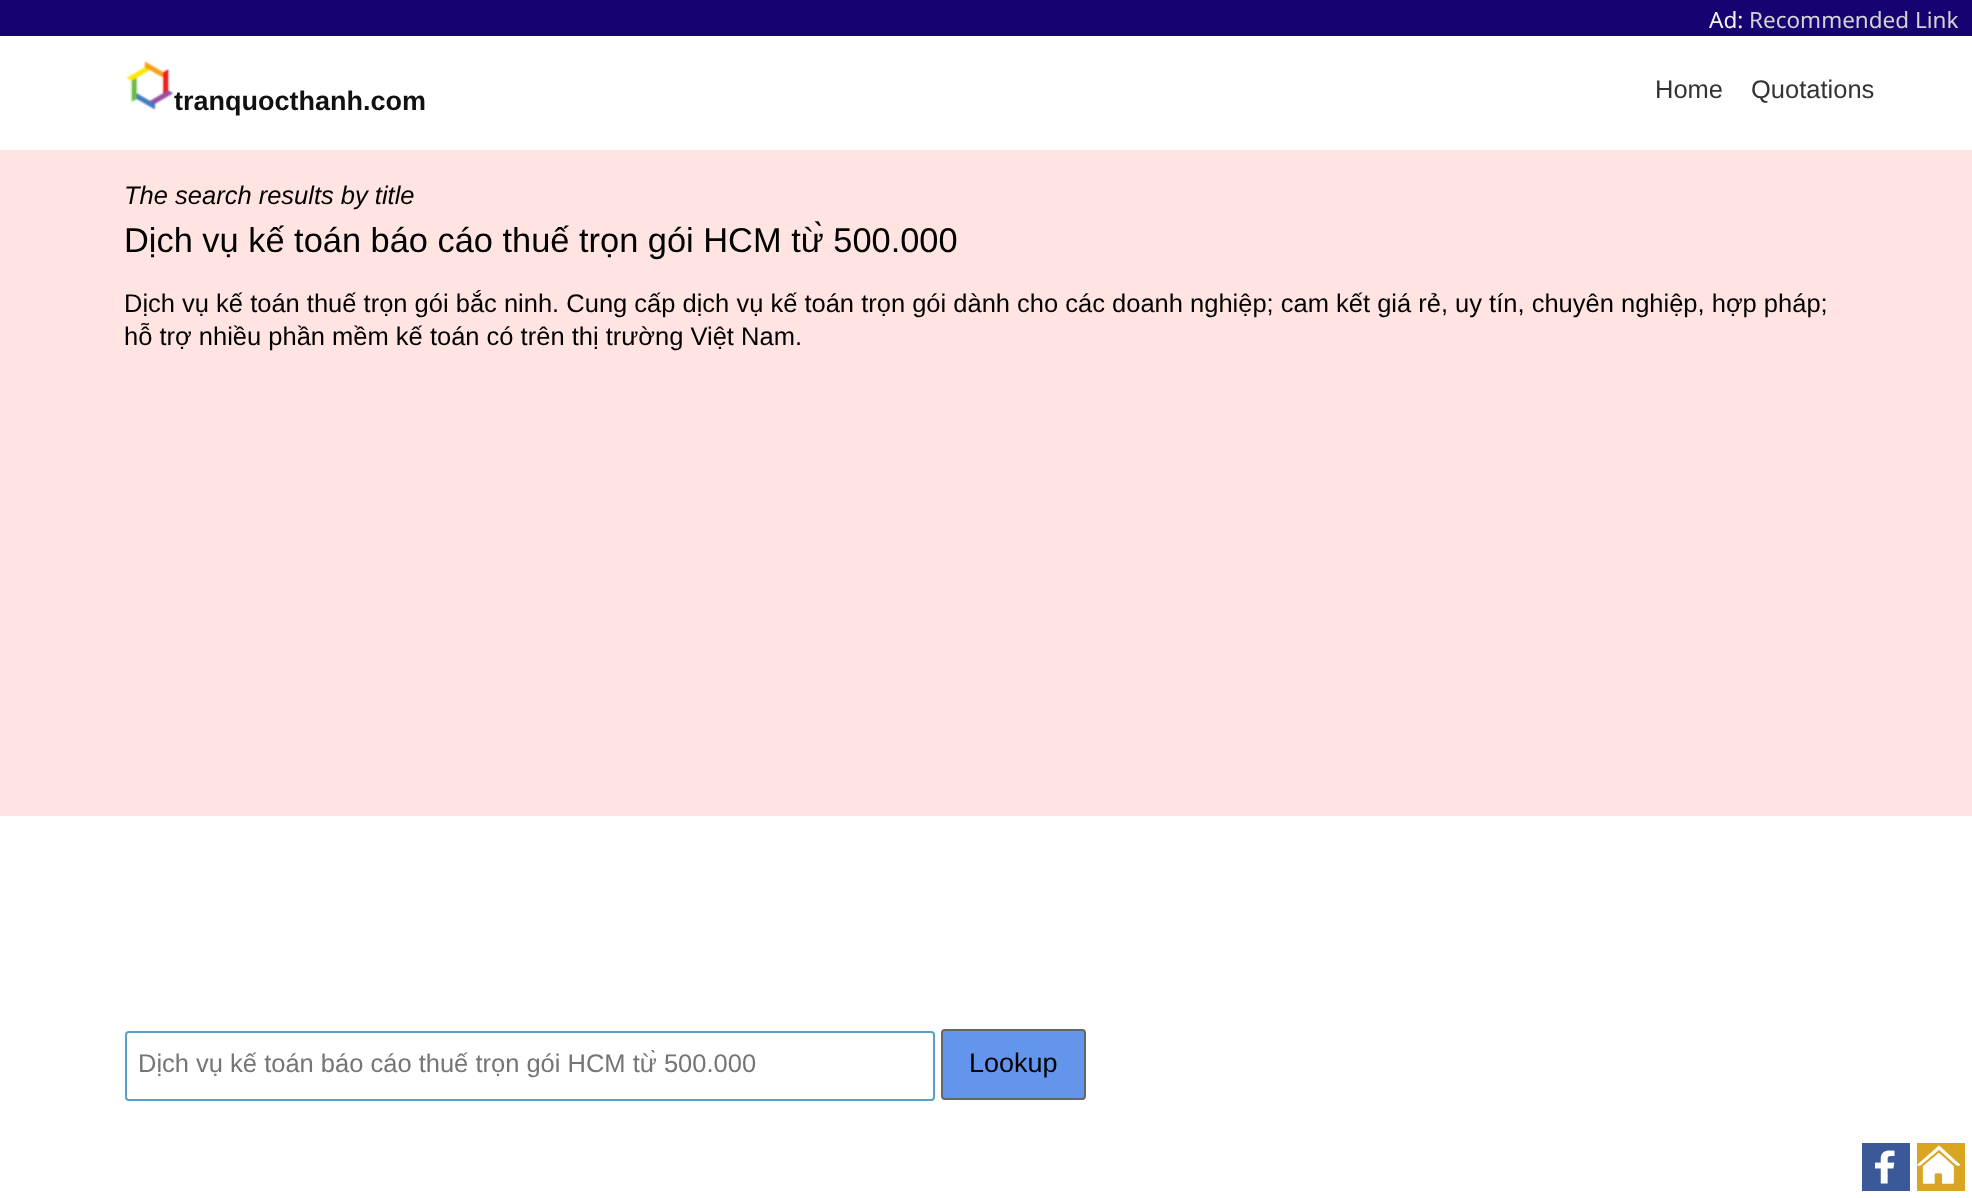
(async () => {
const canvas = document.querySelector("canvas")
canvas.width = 1972
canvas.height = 1198
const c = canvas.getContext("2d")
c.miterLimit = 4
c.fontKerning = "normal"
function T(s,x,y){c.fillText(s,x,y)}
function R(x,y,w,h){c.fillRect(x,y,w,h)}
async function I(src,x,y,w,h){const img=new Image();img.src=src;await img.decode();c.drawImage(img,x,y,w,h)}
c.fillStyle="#fff"
R(0,0,1972,1198)
c.fillStyle="#170272"
R(0,0,1972,36)
c.font="22.5px Noto Sans"
c.fillStyle="#f5f5f5"
T("Ad:",1709,28)
c.fillStyle="#d3d3d3"
T("Recommended Link",1749,28)
await I("1.png",126,61,48,49)
c.font="bold 27px Liberation Sans"
c.fillStyle="#111"
T("tranquocthanh.com",174,110)
c.font="25.5px Liberation Sans"
c.fillStyle="#333"
T("Home",1655,98)
T("Quotations",1751,98)
c.fillStyle="#ffe4e1"
R(0,150,1972,666)
c.font="italic 25.5px Liberation Sans"
c.fillStyle="#000"
T("The search results by title",124,204)
c.font="34.4px Liberation Sans"
T("Dịch vụ kế toán báo cáo thuế trọn gói HCM từ̀ 500.000",124,252)
c.font="25.5px Liberation Sans"
T("Dịch vụ kế toán thuế trọn gói bắc ninh. Cung cấp dịch vụ kế toán trọn gói dành cho các doanh nghiệp; cam kết giá rẻ, uy tín, chuyên nghiệp, hợp pháp;",124,312)
T("hỗ trợ nhiều phần mềm kế toán có trên thị trường Việt Nam.",124,345)
c.beginPath()
c.roundRect(126,1032,808,68,3)
c.strokeStyle="#5a9fc8"
c.lineWidth=2
c.stroke()
c.save()
c.beginPath()
c.rect(138,1050,782,30)
c.clip()
c.fillStyle="#757575"
T("Dịch vụ kế toán báo cáo thuế trọn gói HCM từ̀ 500.000",138,1072)
c.restore()
c.fillStyle="#6495ed"
c.beginPath()
c.roundRect(942,1030,143,69,3)
c.fill()
c.strokeStyle="#666"
c.stroke()
c.font="27px Liberation Sans"
c.fillStyle="#000"
T("Lookup",969,1072)
c.fillStyle="#3b5998"
R(1862,1143,48,48)
c.fillStyle="#daa520"
R(1917,1143,48,48)
await I("2.png",1875,1150,20,34)
await I("3.png",1917,1145,44,39)
})()
